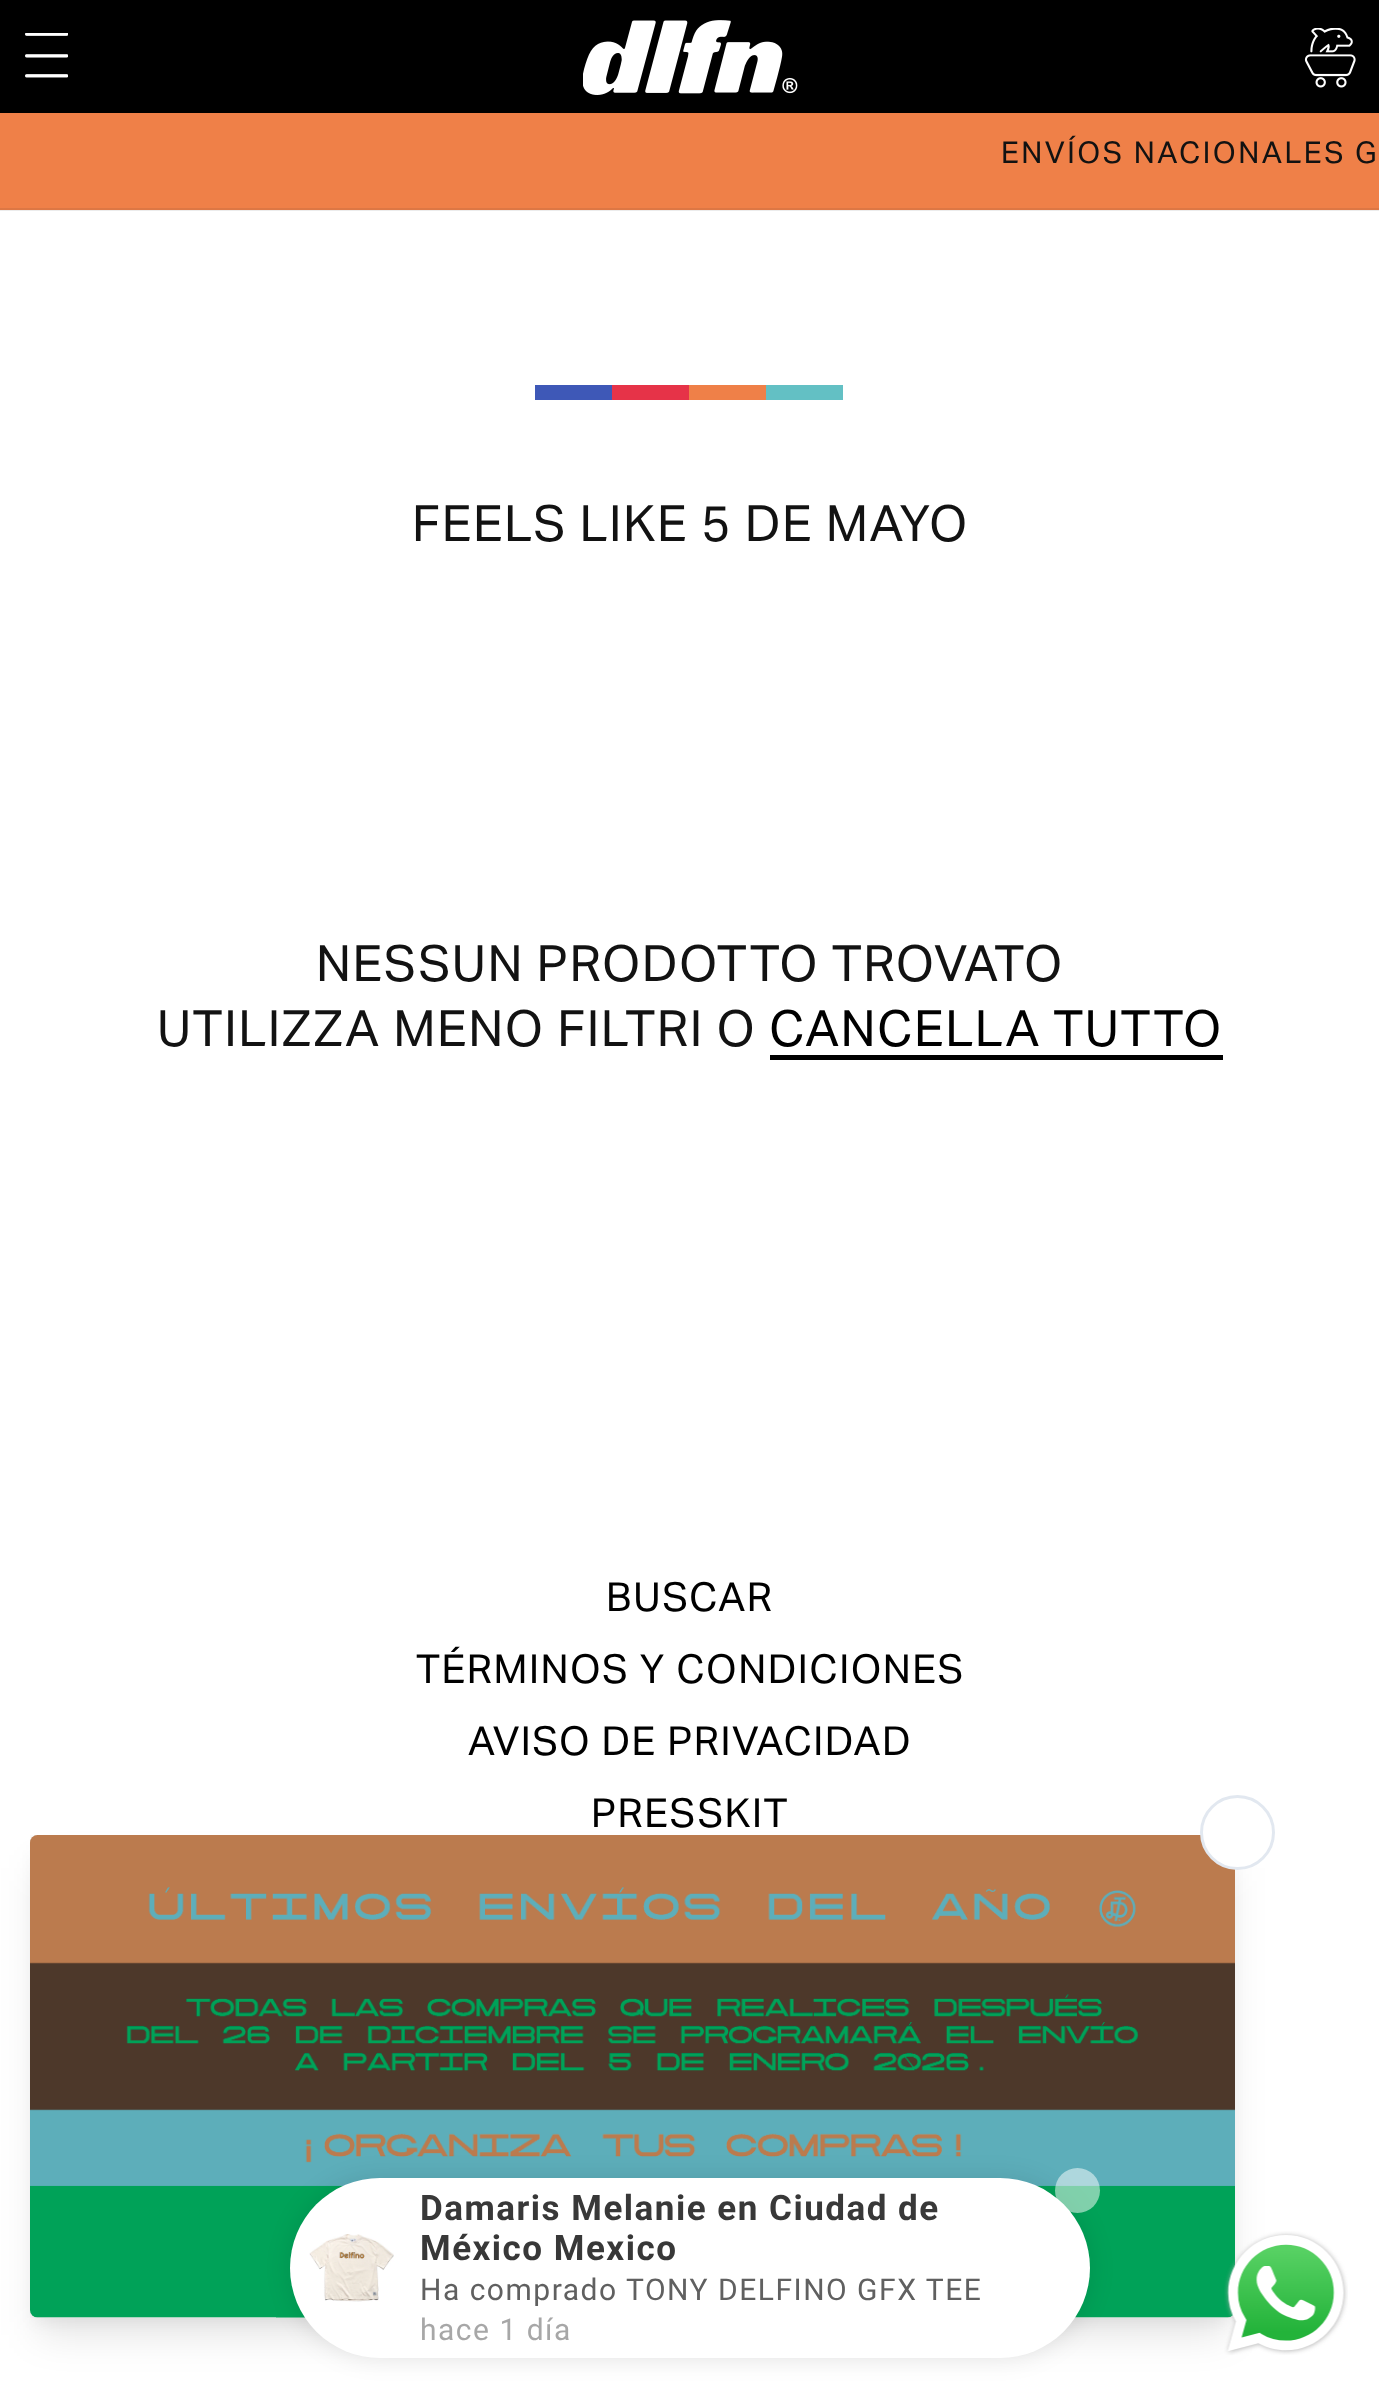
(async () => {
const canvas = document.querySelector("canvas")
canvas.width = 1379
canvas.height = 2386
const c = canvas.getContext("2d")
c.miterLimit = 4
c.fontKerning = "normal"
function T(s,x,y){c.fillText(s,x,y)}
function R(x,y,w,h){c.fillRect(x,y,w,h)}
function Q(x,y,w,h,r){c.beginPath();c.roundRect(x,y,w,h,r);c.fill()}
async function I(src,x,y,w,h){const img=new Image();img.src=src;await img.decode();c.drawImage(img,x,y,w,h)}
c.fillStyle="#fff"
R(0,0,1379,2386)
c.fillStyle="#ececec"
R(0,210,1379,1)
c.fillStyle="#000"
R(0,0,1379,113)
await I("1.png",25,33,43,45)
await I("2.png",583,20,215,75)
await I("3.png",1304,28,52,60)
c.fillStyle="#ef8048"
R(0,113,1379,95)
c.fillStyle="#d74"
R(0,208,1379,2)
c.letterSpacing="2.5px"
c.font="30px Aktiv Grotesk"
c.fillStyle="#121212"
T("ENVÍOS NACIONALES G",1001,163)
c.fillStyle="#3e58b7"
R(535,385,77,15)
c.fillStyle="#e63348"
R(612,385,77,15)
c.fillStyle="#ef8048"
R(689,385,77,15)
c.fillStyle="#63c0c4"
R(766,385,77,15)
c.letterSpacing="1.5px"
c.font="50px Aktiv Grotesk"
c.fillStyle="#121212"
T("FEELS LIKE 5 DE MAYO",412,541)
T("NESSUN PRODOTTO TROVATO",316,981)
T("UTILIZZA MENO FILTRI O",157,1046)
c.fillStyle="#000"
T("CANCELLA TUTTO",769,1046)
R(770,1055,453,5)
c.font="40px Aktiv Grotesk"
T("BUSCAR",606,1611)
T("TÉRMINOS Y CONDICIONES",416,1683)
T("AVISO DE PRIVACIDAD",468,1755)
T("PRESSKIT",591,1827)
c.fillStyle="#0000000d"
c.filter="blur(7.5px)"
c.beginPath()
c.roundRect(35,1850,1195,473,2.5)
c.fill()
c.filter="none"
c.fillStyle="#0000001a"
c.filter="blur(19px)"
c.beginPath()
c.rect(38,1868,1190,467)
c.fill()
c.filter="none"
c.save()
c.beginPath()
c.rect(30,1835,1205,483)
c.clip()
c.fillStyle="#0000001f"
c.filter="blur(25px)"
c.beginPath()
c.rect(38,1843,1190,467)
c.fill()
c.filter="none"
c.restore()
c.fillStyle="#e7e7e7"
Q(30,1835,1205,483,8)
await I("4.png",30,1835,1205,483)
c.fillStyle="#fff"
c.beginPath()
c.arc(1237.5,1832.5,36,0,7)
c.fill()
c.strokeStyle="#e2e8f0"
c.lineWidth=3
c.stroke()
c.fillStyle="#0000001a"
c.filter="blur(12.5px)"
c.beginPath()
c.roundRect(290,2178,800,180,90)
c.fill()
c.filter="none"
c.fillStyle="#fff"
Q(290,2178,800,180,90)
await I("5.png",309,2234,85,68)
c.font="bold 35px Roboto"
c.fillStyle="#383838"
T("Damaris Melanie en Ciudad de",420,2220)
T("México Mexico",420,2260)
c.font="30px Roboto"
c.fillStyle="#606060"
T("Ha comprado TONY DELFINO GFX TEE",420,2300)
c.fillStyle="#a7a7a7"
T("hace 1 día",420,2340)
c.fillStyle="#ffffff80"
c.beginPath()
c.arc(1077.5,2190.5,22.5,0,7)
c.fill()
await I("6.png",1224,2231,124,124)
})()
